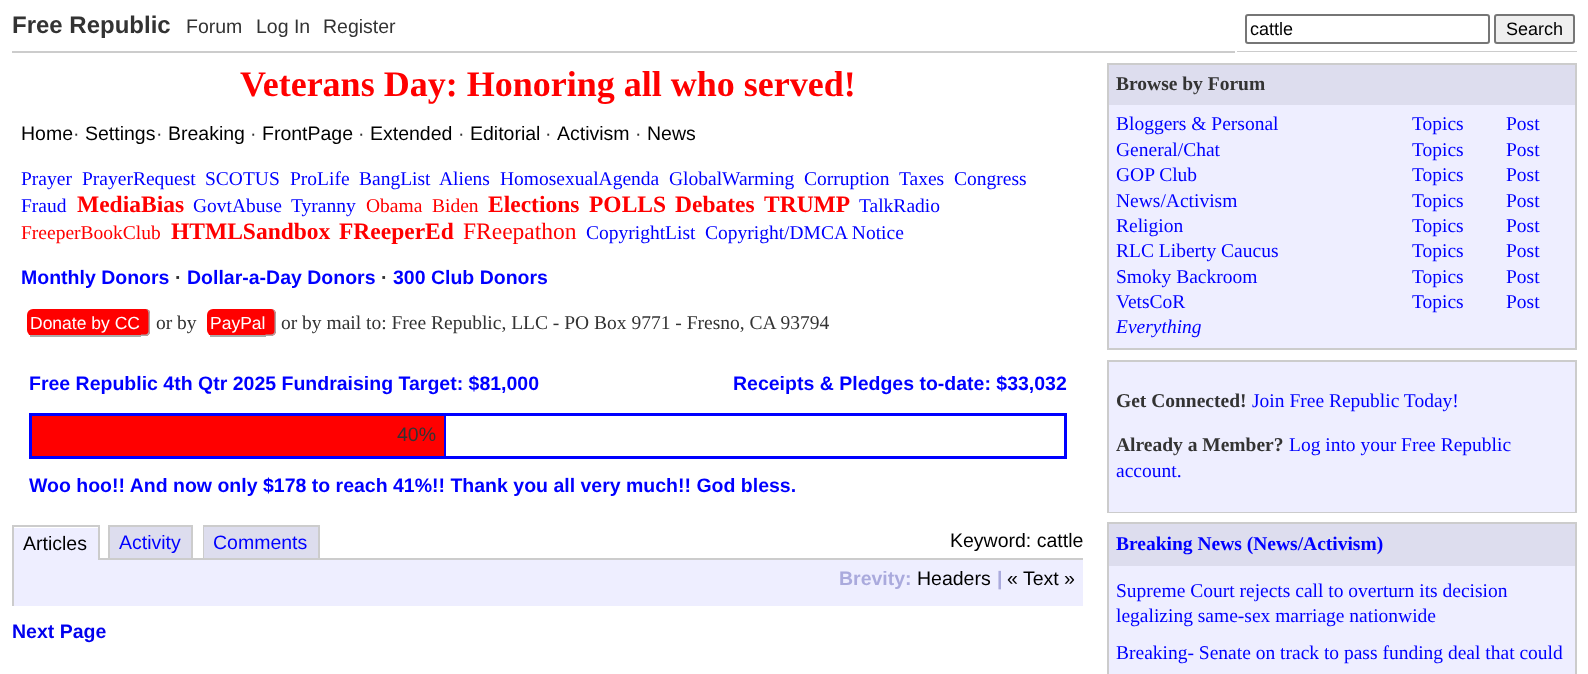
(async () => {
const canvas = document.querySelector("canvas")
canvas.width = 1588
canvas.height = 674
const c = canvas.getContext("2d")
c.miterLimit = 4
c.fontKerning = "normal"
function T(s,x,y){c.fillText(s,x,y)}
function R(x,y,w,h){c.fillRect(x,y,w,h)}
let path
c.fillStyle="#fff"
R(0,0,1588,674)
c.fillStyle="#ccc"
R(12,51,1565,2)
c.font="bold 24px Liberation Sans"
c.fillStyle="#333"
T("Free Republic",12,33)
c.font="19.5px Liberation Sans"
T("Forum",186,33)
T("Log In",256,33)
T("Register",323,33)
c.strokeStyle="#fff"
c.lineWidth=2
c.strokeRect(1236,4,349,49)
c.beginPath()
c.roundRect(1246,15,243,28,2)
c.strokeStyle="#767676"
c.stroke()
c.font="18px Liberation Sans"
c.fillStyle="#000"
T("cattle",1250,35)
c.fillStyle="#efefef"
c.beginPath()
c.roundRect(1495,15,79,28,2)
c.fill()
c.stroke()
c.fillStyle="#000"
T("Search",1506,35)
c.font="bold 36px Liberation Serif"
c.fillStyle="#f00"
T("Veterans Day: Honoring all who served!",240,96)
c.font="19.5px Liberation Sans"
c.fillStyle="#000"
T("Home",21,140)
c.fillStyle="#333"
T("·",73,140)
c.fillStyle="#000"
T("Settings",85,140)
c.fillStyle="#333"
T("·",156,140)
c.fillStyle="#000"
T("Breaking",168,140)
c.fillStyle="#333"
T("·",250,140)
c.fillStyle="#000"
T("FrontPage",262,140)
c.fillStyle="#333"
T("·",358,140)
c.fillStyle="#000"
T("Extended",370,140)
c.fillStyle="#333"
T("·",458,140)
c.fillStyle="#000"
T("Editorial",470,140)
c.fillStyle="#333"
T("·",545,140)
c.fillStyle="#000"
T("Activism",557,140)
c.fillStyle="#333"
T("·",635,140)
c.fillStyle="#000"
T("News",647,140)
c.font="19.5px Liberation Serif"
c.fillStyle="#00f"
T("Prayer",21,185)
T("PrayerRequest",82,185)
T("SCOTUS",205,185)
T("ProLife",290,185)
T("BangList",359,185)
T("Aliens",439,185)
T("HomosexualAgenda",500,185)
T("GlobalWarming",669,185)
T("Corruption",804,185)
T("Taxes",899,185)
T("Congress",954,185)
T("Fraud",21,212)
c.font="bold 23.5px Liberation Serif"
c.fillStyle="#f00"
T("MediaBias",77,212)
c.font="19.5px Liberation Serif"
c.fillStyle="#00f"
T("GovtAbuse",193,212)
T("Tyranny",291,212)
c.fillStyle="#f00"
T("Obama",366,212)
T("Biden",432,212)
c.font="bold 23.5px Liberation Serif"
T("Elections",488,212)
T("POLLS",589,212)
T("Debates",675,212)
T("TRUMP",764,212)
c.font="19.5px Liberation Serif"
c.fillStyle="#00f"
T("TalkRadio",859,212)
c.fillStyle="#f00"
T("FreeperBookClub",21,239)
c.font="bold 23.5px Liberation Serif"
T("HTMLSandbox",171,239)
T("FReeperEd",339,239)
c.font="23.5px Liberation Serif"
T("FReepathon",463,239)
c.font="19.5px Liberation Serif"
c.fillStyle="#00f"
T("CopyrightList",586,239)
T("Copyright/DMCA Notice",705,239)
c.font="bold 19.5px Liberation Sans"
T("Monthly Donors",21,284)
c.fillStyle="#333"
T("·",175,284)
c.fillStyle="#00f"
T("Dollar-a-Day Donors",187,284)
c.fillStyle="#333"
T("·",381,284)
c.fillStyle="#00f"
T("300 Club Donors",393,284)
c.fillStyle="#f00"
c.beginPath()
c.roundRect(27,309,114,27,[6,0,0,6])
c.fill()
c.font="17.5px Liberation Sans"
c.fillStyle="#fff"
T("Donate by CC",30,329)
c.fillStyle="#aaa"
R(30,335,111,2)
c.fillStyle="#f00"
c.beginPath()
c.roundRect(141,309,9,27,[0,4.5,4.5,0])
c.fill()
c.fillStyle="#aaa"
path = new Path2D("M141 309h4.5c2.5 0 4.5 2 4.5 4.5v18c0 2.5-2 4.5-4.5 4.5h-4.5zm0 0h4.5c1.5 0 3 2 3 4.5v18c0 1.5-1.5 3-3 3h-4.5z")
c.fill(path,"evenodd")
c.font="19.5px Liberation Serif"
c.fillStyle="#333"
T("or by",156,329)
c.fillStyle="#f00"
c.beginPath()
c.roundRect(207,309,59,27,[6,0,0,6])
c.fill()
c.font="17.5px Liberation Sans"
c.fillStyle="#fff"
T("PayPal",210,329)
c.fillStyle="#aaa"
R(210,335,56,2)
c.fillStyle="#f00"
c.beginPath()
c.roundRect(266,309,10,27,[0,5,5,0])
c.fill()
c.fillStyle="#aaa"
path = new Path2D("M265.5 309h5.5c2.5 0 5 2.5 5 5v17c0 2.5-2.5 5-5 5h-5.5zm0 0h5.5c2 0 3.5 2.5 3.5 5v17c0 2-1.5 3.5-3.5 3.5h-5.5z")
c.fill(path,"evenodd")
c.font="19.5px Liberation Serif"
c.fillStyle="#333"
T("or by mail to: Free Republic, LLC - PO Box 9771 - Fresno, CA 93794",281,329)
c.font="bold 19.5px Liberation Sans"
c.fillStyle="#00f"
T("Free Republic 4th Qtr 2025 Fundraising Target: $81,000",29,390)
T("Receipts & Pledges to-date: $33,032",733,390)
R(29,413,1038,46)
c.fillStyle="#f00"
R(32,416,412,40)
c.font="19.5px Liberation Sans"
c.fillStyle="#333"
T("40%",397,441)
c.fillStyle="#fff"
R(446,416,618,40)
c.font="bold 19.5px Liberation Sans"
c.fillStyle="#00f"
T("Woo hoo!! And now only $178 to reach 41%!! Thank you all very much!! God bless.",29,492)
c.fillStyle="#ccc"
R(12,525,87,2)
R(98,525,2,33)
R(12,525,2,33)
c.fillStyle="#eef"
R(14,528,84,32)
c.font="19.5px Liberation Sans"
c.fillStyle="#000"
T("Articles",23,550)
c.fillStyle="#ccc"
R(108,525,84,2)
R(191,525,2,33)
R(108,525,2,33)
c.fillStyle="#dde"
R(110,527,81,31)
c.fillStyle="#00f"
T("Activity",119,549)
c.fillStyle="#ccc"
R(203,525,117,2)
R(318,525,2,33)
R(203,525,2,33)
c.fillStyle="#dde"
R(204,527,114,31)
c.fillStyle="#00f"
T("Comments",213,549)
c.fillStyle="#000"
T("Keyword: cattle",950,547)
c.fillStyle="#eef"
R(14,560,1069,46)
c.fillStyle="#ccc"
R(98,558,985,2)
R(12,558,2,48)
c.font="bold 19.5px Liberation Sans"
c.fillStyle="#aad"
T("Brevity:",839,585)
c.font="19.5px Liberation Sans"
c.fillStyle="#000"
T("Headers",917,585)
c.font="bold 19.5px Liberation Sans"
c.fillStyle="#aad"
T("|",997,585)
c.font="19.5px Liberation Sans"
c.fillStyle="#000"
T("« Text »",1007,585)
c.font="bold 19.5px Liberation Sans"
c.fillStyle="#00e"
T("Next Page",12,638)
c.strokeStyle="#ccc"
c.strokeRect(1108,64,468,285)
c.fillStyle="#dde"
R(1109,65,466,40)
c.font="bold 19.5px Liberation Serif"
c.fillStyle="#333"
T("Browse by Forum",1116,90)
c.fillStyle="#eef"
R(1109,105,466,243)
c.font="19.5px Liberation Serif"
c.fillStyle="#00f"
T("Bloggers & Personal",1116,130)
T("Topics",1412,130)
T("Post",1506,130)
T("General/Chat",1116,156)
T("Topics",1412,156)
T("Post",1506,156)
T("GOP Club",1116,181)
T("Topics",1412,181)
T("Post",1506,181)
T("News/Activism",1116,207)
T("Topics",1412,207)
T("Post",1506,207)
T("Religion",1116,232)
T("Topics",1412,232)
T("Post",1506,232)
T("RLC Liberty Caucus",1116,257)
T("Topics",1412,257)
T("Post",1506,257)
T("Smoky Backroom",1116,283)
T("Topics",1412,283)
T("Post",1506,283)
T("VetsCoR",1116,308)
T("Topics",1412,308)
T("Post",1506,308)
c.font="italic 19.5px Liberation Serif"
T("Everything",1116,333)
c.strokeRect(1108,361,468,151)
c.fillStyle="#eef"
R(1109,362,466,150)
c.font="bold 19.5px Liberation Serif"
c.fillStyle="#333"
T("Get Connected!",1116,407)
c.font="19.5px Liberation Serif"
c.fillStyle="#00f"
T("Join Free Republic Today!",1252,407)
c.font="bold 19.5px Liberation Serif"
c.fillStyle="#333"
T("Already a Member?",1116,451)
c.font="19.5px Liberation Serif"
c.fillStyle="#00f"
T("Log into your Free Republic",1289,451)
T("account.",1116,477)
c.strokeRect(1108,523,468,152)
c.fillStyle="#dde"
R(1109,524,466,42)
c.font="bold 19.5px Liberation Serif"
c.fillStyle="#00f"
T("Breaking News (News/Activism)",1116,550)
c.fillStyle="#eef"
R(1109,566,466,108)
c.font="19.5px Liberation Serif"
c.fillStyle="#00f"
T("Supreme Court rejects call to overturn its decision",1116,597)
T("legalizing same-sex marriage nationwide",1116,622)
T("Breaking- Senate on track to pass funding deal that could",1116,659)
})()
